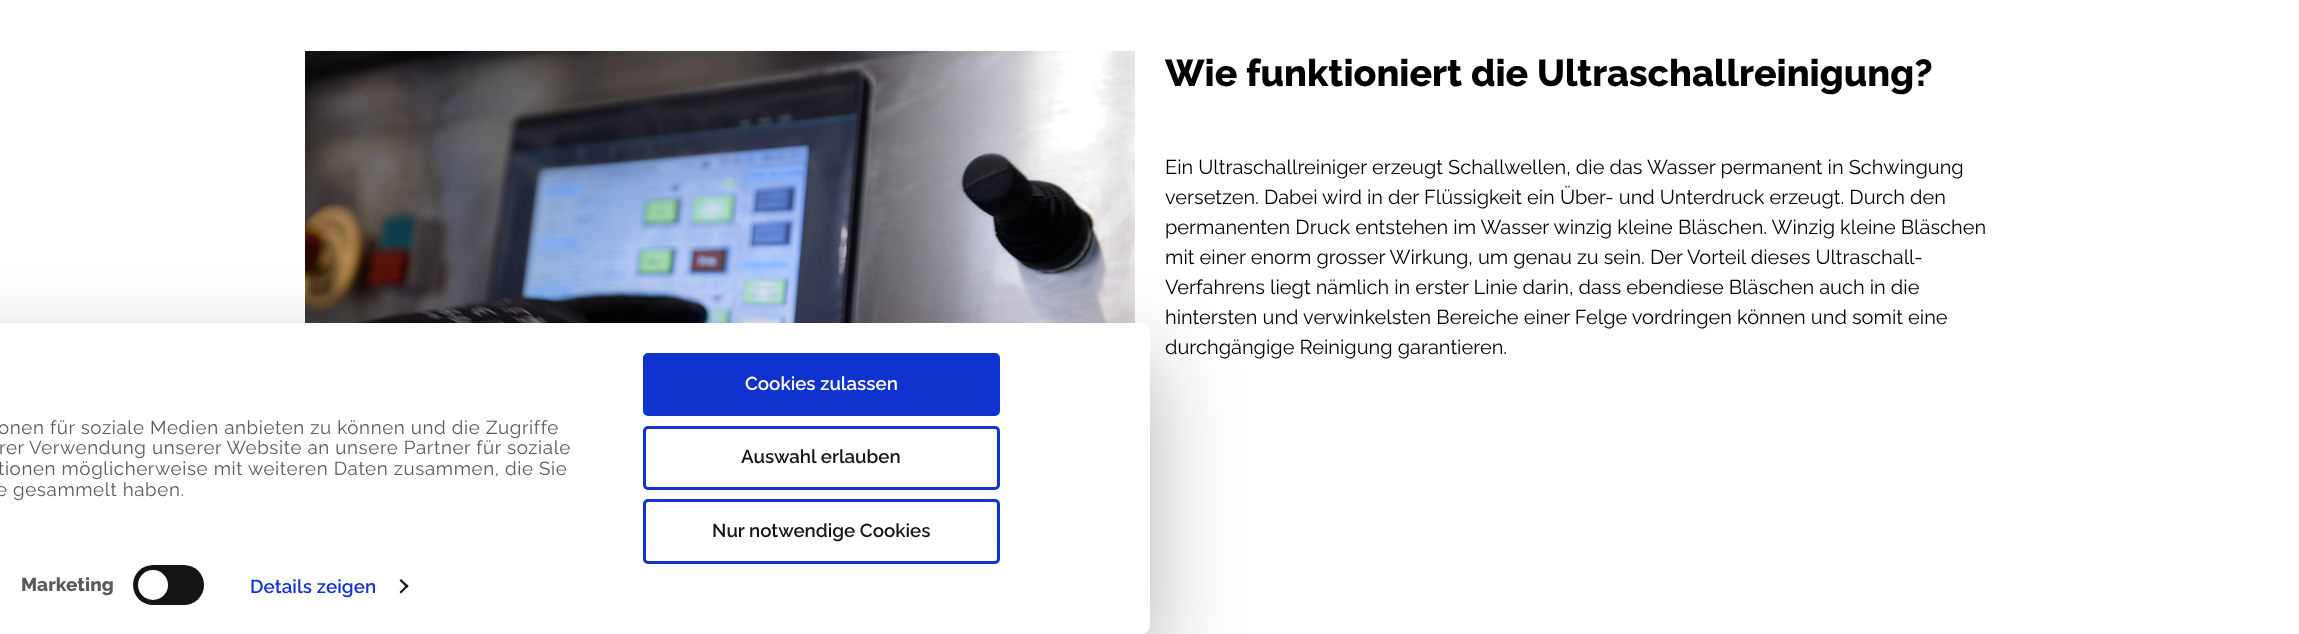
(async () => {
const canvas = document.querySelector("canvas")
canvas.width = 2299
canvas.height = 634
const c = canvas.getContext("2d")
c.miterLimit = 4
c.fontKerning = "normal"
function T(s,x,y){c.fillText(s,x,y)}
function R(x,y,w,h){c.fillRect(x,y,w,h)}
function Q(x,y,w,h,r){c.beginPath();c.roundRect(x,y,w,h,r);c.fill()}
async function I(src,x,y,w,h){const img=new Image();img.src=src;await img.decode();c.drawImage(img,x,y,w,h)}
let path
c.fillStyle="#fff"
R(0,0,2299,634)
await I("1.png",305,51,830,272)
c.font="800 37.5px Raleway"
c.fillStyle="#000"
T("Wie funktioniert die Ultraschallreinigung?",1165,86)
c.font="20px Raleway"
T("Ein Ultraschallreiniger erzeugt Schallwellen, die das Wasser permanent in Schwingung",1165,174)
T("versetzen. Dabei wird in der Flüssigkeit ein Über- und Unterdruck erzeugt. Durch den",1165,204)
T("permanenten Druck entstehen im Wasser winzig kleine Bläschen. Winzig kleine Bläschen",1165,234)
T("mit einer enorm grosser Wirkung, um genau zu sein. Der Vorteil dieses Ultraschall-",1165,264)
T("Verfahrens liegt nämlich in erster Linie darin, dass ebendiese Bläschen auch in die",1165,294)
T("hintersten und verwinkelsten Bereiche einer Felge vordringen können und somit eine",1165,324)
T("durchgängige Reinigung garantieren.",1165,354)
c.fillStyle="#0000004d"
c.filter="blur(44px)"
c.beginPath()
c.roundRect(-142,360,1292,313,10)
c.fill()
c.filter="none"
c.fillStyle="#fff"
path = new Path2D("M-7.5 323h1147.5c5.5 0 10 4.5 10 10v292c0 5.5-4.5 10-10 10h-1140c-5.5 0-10-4.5-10-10v-299.5c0-1.5 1-2.5 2.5-2.5z")
c.fill(path)
c.letterSpacing="0.62px"
c.font="18.75px Raleway"
c.fillStyle="#5a5a5a"
T("onen für soziale Medien anbieten zu können und die Zugriffe",-2,434)
T("rer Verwendung unserer Website an unsere Partner für soziale",-1,454)
T("tionen möglicherweise mit weiteren Daten zusammen, die Sie",-2,475)
T("e gesammelt haben.",-4,496)
c.letterSpacing="0.1px"
c.font="800 18.75px Raleway"
T("Marketing",21,591)
c.fillStyle="#141414"
Q(133,565,71,40,20)
c.fillStyle="#fff"
c.beginPath()
c.arc(153,585,15,0,7)
c.fill()
c.font="600 18.75px Raleway"
c.fillStyle="#1032cf"
T("Details zeigen",250,593)
c.fillStyle="#141414"
path = new Path2D("M401 579l7.5 7l-1.5 2l-7.5-7.5z")
c.fill(path)
path = new Path2D("M407 584.5l1.5 1.5l-7.5 7.5l-1.5-1.5z")
c.fill(path)
c.fillStyle="#1032cf"
c.beginPath()
c.roundRect(644.5,354.5,354,60,3.5)
c.fill()
c.strokeStyle="#1032cf"
c.lineWidth=3
c.stroke()
c.letterSpacing="0px"
c.fillStyle="#fff"
T("Cookies zulassen",745,390)
c.beginPath()
c.roundRect(644.5,427.5,354,61,3.5)
c.stroke()
c.fillStyle="#141414"
T("Auswahl erlauben",741,463)
c.beginPath()
c.roundRect(644.5,500.5,354,62,3.5)
c.stroke()
T("Nur notwendige Cookies",712,537)
})()
